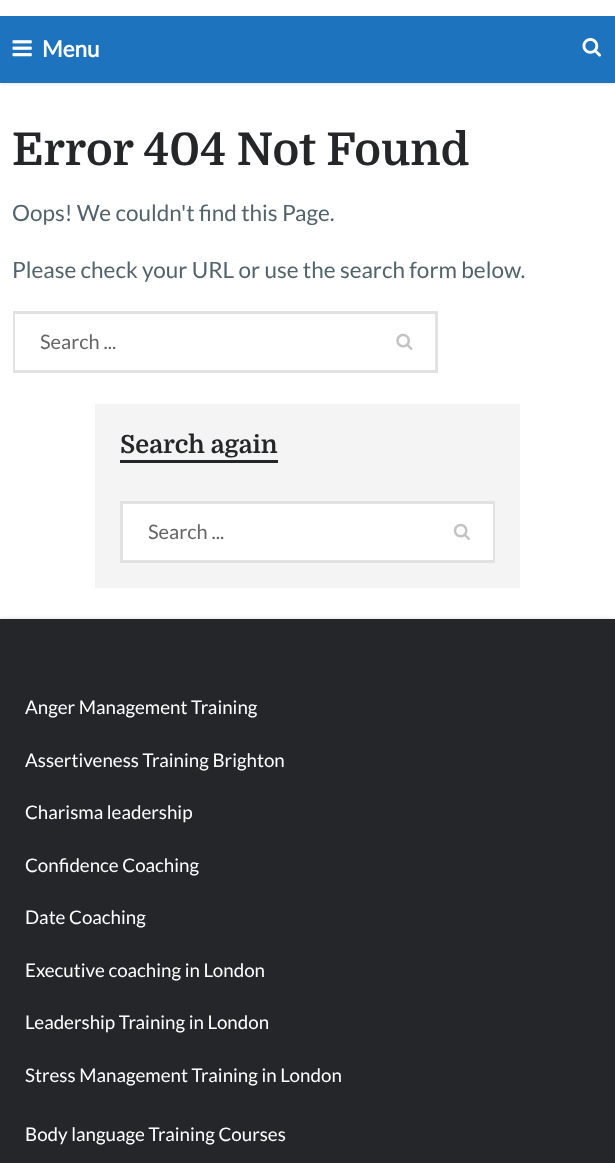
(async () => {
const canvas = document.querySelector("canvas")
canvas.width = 615
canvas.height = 1163
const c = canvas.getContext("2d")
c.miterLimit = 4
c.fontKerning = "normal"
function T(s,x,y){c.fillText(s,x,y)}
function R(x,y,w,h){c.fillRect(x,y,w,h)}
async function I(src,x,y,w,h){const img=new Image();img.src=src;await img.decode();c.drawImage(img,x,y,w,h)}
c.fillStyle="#fff"
R(0,0,615,1163)
c.fillStyle="#00000026"
c.filter="blur(2px)"
c.beginPath()
c.rect(0,16,615,67)
c.fill()
c.filter="none"
c.fillStyle="#fff"
R(0,13,615,3)
c.fillStyle="#1e73be"
R(0,16,615,67)
await I("1.png",12,40,20,17)
c.font="bold 22.5px Lato"
c.fillStyle="#fff"
T("Menu",42,57)
await I("2.png",582,38,20,19)
c.font="bold 45px Domine"
c.fillStyle="#242628"
T("Error 404 Not Found",12,165)
c.font="22.5px Lato"
c.fillStyle="#52636b"
T("Oops! We couldn't find this Page.",12,221)
T("Please check your URL or use the search form below.",12,278)
c.strokeStyle="#e2e2e2"
c.lineWidth=3
c.strokeRect(14.5,312.5,422,59)
c.fillStyle="#fff"
R(15,314,1,56)
c.font="20px Lato"
c.fillStyle="#666"
T("Search ...",40,349)
await I("3.png",396,333,17,17)
c.fillStyle="#f4f4f4"
R(95,404,425,184)
c.font="bold 25px Domine"
c.fillStyle="#242628"
T("Search again",120,453)
R(120,460,158,3)
c.strokeRect(121.5,502.5,372,59)
c.fillStyle="#fff"
R(123,504,370,56)
c.font="20px Lato"
c.fillStyle="#666"
T("Search ...",148,539)
await I("4.png",453,523,17,17)
c.fillStyle="#00000026"
c.filter="blur(2px)"
c.beginPath()
c.rect(0,619,615,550)
c.fill()
c.filter="none"
c.fillStyle="#242629"
R(0,619,615,544)
c.font="18.75px Lato"
c.fillStyle="#fff"
T("Anger Management Training",25,714)
T("Assertiveness Training Brighton",25,767)
T("Charisma leadership",25,819)
T("Confidence Coaching",25,872)
T("Date Coaching",25,924)
T("Executive coaching in London",25,977)
T("Leadership Training in London",25,1029)
T("Stress Management Training in London",25,1082)
T("Body language Training Courses",25,1141)
})()
